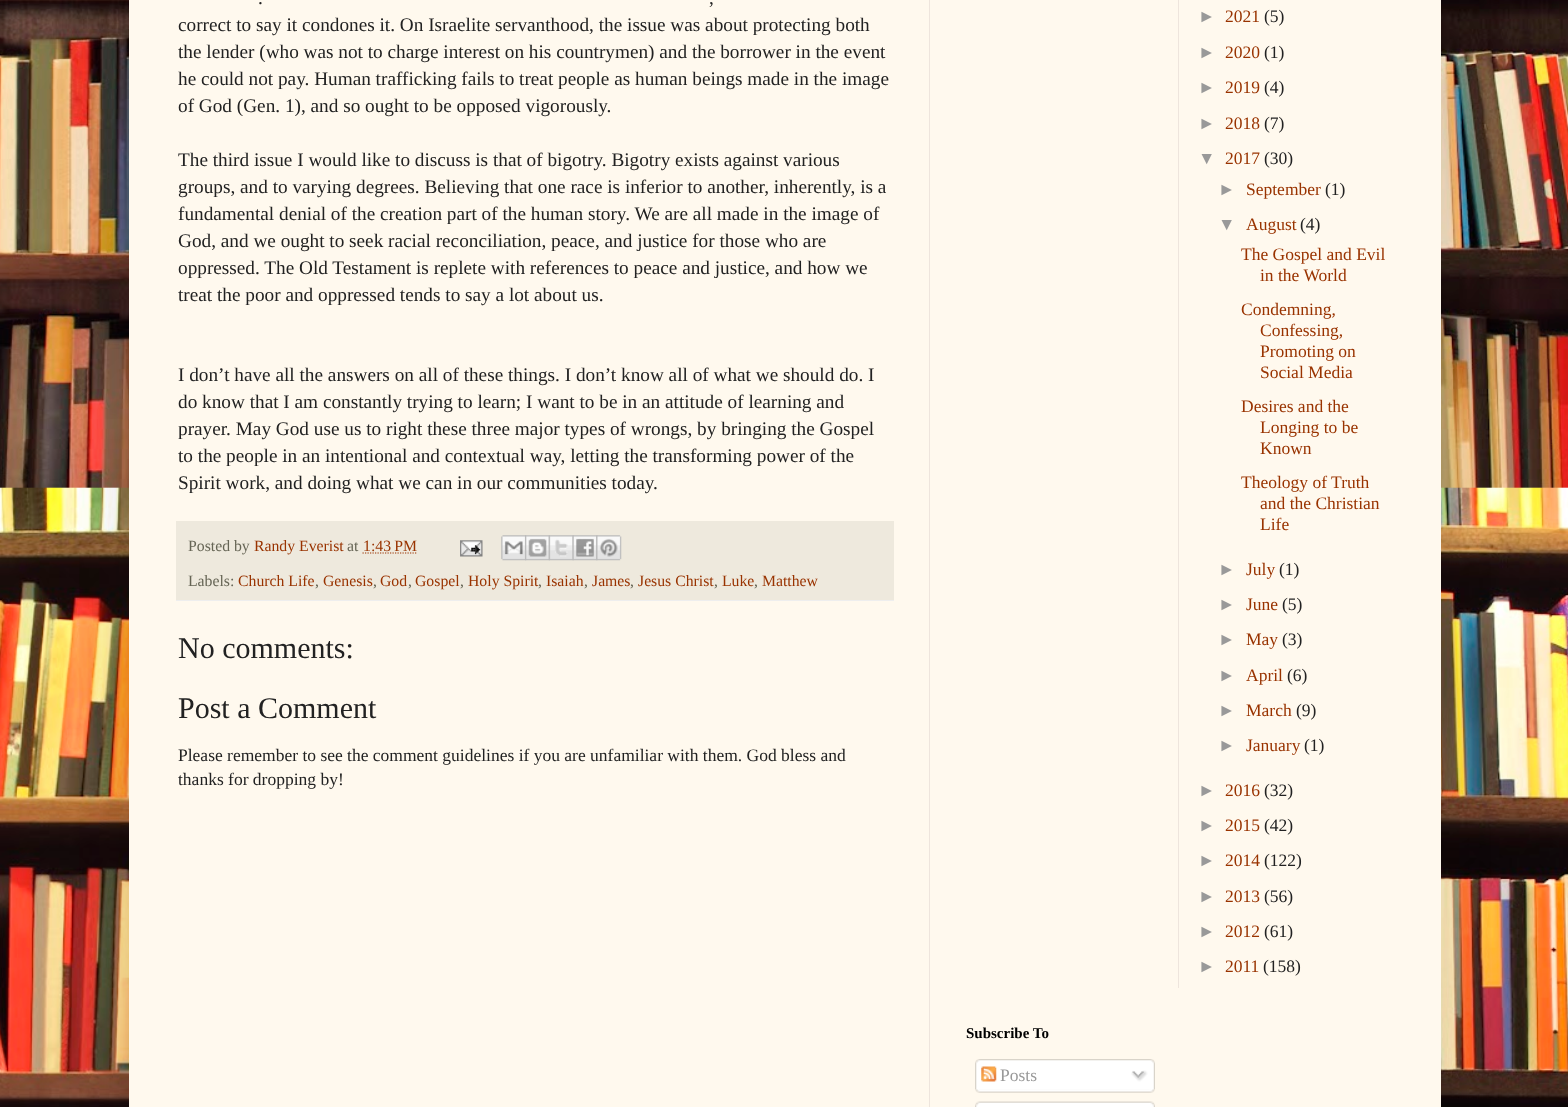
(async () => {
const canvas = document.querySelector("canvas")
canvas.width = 1568
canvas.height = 1107
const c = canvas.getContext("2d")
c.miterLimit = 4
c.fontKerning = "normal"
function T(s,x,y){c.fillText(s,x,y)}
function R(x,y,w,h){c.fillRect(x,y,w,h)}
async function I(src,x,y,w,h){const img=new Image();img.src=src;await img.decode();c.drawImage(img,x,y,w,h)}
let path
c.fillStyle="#fff"
R(0,0,1568,1107)
await I("1.png",0,0,1568,1107)
c.fillStyle="#00000026"
c.filter="blur(25px)"
c.beginPath()
c.rect(129,-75,1312,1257)
c.fill()
c.filter="none"
c.fillStyle="#fff9ee"
R(129,0,1312,1107)
c.fillStyle="#eee5dd"
R(929,0,1,1107)
c.font="19.25px Liberation Serif"
c.fillStyle="#222"
T(".",258,4)
T(",",709,4)
T("correct to say it condones it. On Israelite servanthood, the issue was about protecting both",178,31)
T("the lender (who was not to charge interest on his countrymen) and the borrower in the event",178,58)
T("he could not pay. Human trafficking fails to treat people as human beings made in the image",178,85)
T("of God (Gen. 1), and so ought to be opposed vigorously.",178,112)
T("The third issue I would like to discuss is that of bigotry. Bigotry exists against various",178,166)
T("groups, and to varying degrees. Believing that one race is inferior to another, inherently, is a",178,193)
T("fundamental denial of the creation part of the human story. We are all made in the image of",178,220)
T("God, and we ought to seek racial reconciliation, peace, and justice for those who are",178,247)
T("oppressed. The Old Testament is replete with references to peace and justice, and how we",178,274)
T("treat the poor and oppressed tends to say a lot about us.",178,301)
T("I don’t have all the answers on all of these things. I don’t know all of what we should do. I",178,381)
T("do know that I am constantly trying to learn; I want to be in an attitude of learning and",178,408)
T("prayer. May God use us to right these three major types of wrongs, by bringing the Gospel",178,435)
T("to the people in an intentional and contextual way, letting the transforming power of the",178,462)
T("Spirit work, and doing what we can in our communities today.",178,489)
c.fillStyle="#eee9dd"
R(176,521,718,79)
c.fillStyle="#eee"
R(176,600,718,1)
c.font="15.75px Liberation Serif"
c.fillStyle="#666555"
T("Posted by",188,551)
c.fillStyle="#930"
T("Randy Everist",254,551)
c.fillStyle="#666555"
T("at",347,551)
c.fillStyle="#930"
T("1:43 PM",363,551)
path = new Path2D("M362.5 553h54")
c.strokeStyle="#930"
c.lineWidth=1.2
c.setLineDash([1.25,1.25])
c.stroke(path)
await I("2.png",460,540,23,17)
await I("3.png",501,535,26,26)
await I("4.png",525,535,25,26)
await I("5.png",548,535,26,26)
await I("6.png",572,535,26,26)
await I("7.png",596,535,26,26)
c.fillStyle="#666555"
T("Labels:",188,586)
c.fillStyle="#930"
T("Church Life",238,586)
c.fillStyle="#666555"
T(",",315,586)
c.fillStyle="#930"
T("Genesis",323,586)
c.fillStyle="#666555"
T(",",373,586)
c.fillStyle="#930"
T("God",380,586)
c.fillStyle="#666555"
T(",",408,586)
c.fillStyle="#930"
T("Gospel",415,586)
c.fillStyle="#666555"
T(",",460,586)
c.fillStyle="#930"
T("Holy Spirit",468,586)
c.fillStyle="#666555"
T(",",538,586)
c.fillStyle="#930"
T("Isaiah",546,586)
c.fillStyle="#666555"
T(",",584,586)
c.fillStyle="#930"
T("James",592,586)
c.fillStyle="#666555"
T(",",630,586)
c.fillStyle="#930"
T("Jesus Christ",638,586)
c.fillStyle="#666555"
T(",",714,586)
c.fillStyle="#930"
T("Luke",722,586)
c.fillStyle="#666555"
T(",",754,586)
c.fillStyle="#930"
T("Matthew",762,586)
c.font="30px Liberation Serif"
c.fillStyle="#222"
T("No comments:",178,658)
T("Post a Comment",178,718)
c.font="17.5px Liberation Serif"
T("Please remember to see the comment guidelines if you are unfamiliar with them. God bless and",178,761)
T("thanks for dropping by!",178,785)
c.fillStyle="#eee5dd"
R(1178,0,1,988)
c.font="17.5px Liberation Sans"
c.fillStyle="#999"
T("►",1198,22)
c.font="17.5px Liberation Serif"
c.fillStyle="#930"
T("2021",1225,22)
c.fillStyle="#222"
T("(5)",1264,22)
c.font="17.5px Liberation Sans"
c.fillStyle="#999"
T("►",1198,58)
c.font="17.5px Liberation Serif"
c.fillStyle="#930"
T("2020",1225,58)
c.fillStyle="#222"
T("(1)",1264,58)
c.font="17.5px Liberation Sans"
c.fillStyle="#999"
T("►",1198,93)
c.font="17.5px Liberation Serif"
c.fillStyle="#930"
T("2019",1225,93)
c.fillStyle="#222"
T("(4)",1264,93)
c.font="17.5px Liberation Sans"
c.fillStyle="#999"
T("►",1198,129)
c.font="17.5px Liberation Serif"
c.fillStyle="#930"
T("2018",1225,129)
c.fillStyle="#222"
T("(7)",1264,129)
c.font="17.5px Liberation Sans"
c.fillStyle="#999"
T("▼",1198,164)
c.font="17.5px Liberation Serif"
c.fillStyle="#930"
T("2017",1225,164)
c.fillStyle="#222"
T("(30)",1264,164)
c.font="17.5px Liberation Sans"
c.fillStyle="#999"
T("►",1218,195)
c.font="17.5px Liberation Serif"
c.fillStyle="#930"
T("September",1246,195)
c.fillStyle="#222"
T("(1)",1325,195)
c.font="17.5px Liberation Sans"
c.fillStyle="#999"
T("▼",1218,230)
c.font="17.5px Liberation Serif"
c.fillStyle="#930"
T("August",1246,230)
c.fillStyle="#222"
T("(4)",1300,230)
c.fillStyle="#930"
T("The Gospel and Evil",1241,260)
T("in the World",1260,281)
T("Condemning,",1241,315)
T("Confessing,",1260,336)
T("Promoting on",1260,357)
T("Social Media",1260,378)
T("Desires and the",1241,412)
T("Longing to be",1260,433)
T("Known",1260,454)
T("Theology of Truth",1241,488)
T("and the Christian",1260,509)
T("Life",1260,530)
c.font="17.5px Liberation Sans"
c.fillStyle="#999"
T("►",1218,575)
c.font="17.5px Liberation Serif"
c.fillStyle="#930"
T("July",1246,575)
c.fillStyle="#222"
T("(1)",1279,575)
c.font="17.5px Liberation Sans"
c.fillStyle="#999"
T("►",1218,610)
c.font="17.5px Liberation Serif"
c.fillStyle="#930"
T("June",1246,610)
c.fillStyle="#222"
T("(5)",1282,610)
c.font="17.5px Liberation Sans"
c.fillStyle="#999"
T("►",1218,645)
c.font="17.5px Liberation Serif"
c.fillStyle="#930"
T("May",1246,645)
c.fillStyle="#222"
T("(3)",1282,645)
c.font="17.5px Liberation Sans"
c.fillStyle="#999"
T("►",1218,681)
c.font="17.5px Liberation Serif"
c.fillStyle="#930"
T("April",1246,681)
c.fillStyle="#222"
T("(6)",1287,681)
c.font="17.5px Liberation Sans"
c.fillStyle="#999"
T("►",1218,716)
c.font="17.5px Liberation Serif"
c.fillStyle="#930"
T("March",1246,716)
c.fillStyle="#222"
T("(9)",1296,716)
c.font="17.5px Liberation Sans"
c.fillStyle="#999"
T("►",1218,751)
c.font="17.5px Liberation Serif"
c.fillStyle="#930"
T("January",1246,751)
c.fillStyle="#222"
T("(1)",1304,751)
c.font="17.5px Liberation Sans"
c.fillStyle="#999"
T("►",1198,796)
c.font="17.5px Liberation Serif"
c.fillStyle="#930"
T("2016",1225,796)
c.fillStyle="#222"
T("(32)",1264,796)
c.font="17.5px Liberation Sans"
c.fillStyle="#999"
T("►",1198,831)
c.font="17.5px Liberation Serif"
c.fillStyle="#930"
T("2015",1225,831)
c.fillStyle="#222"
T("(42)",1264,831)
c.font="17.5px Liberation Sans"
c.fillStyle="#999"
T("►",1198,866)
c.font="17.5px Liberation Serif"
c.fillStyle="#930"
T("2014",1225,866)
c.fillStyle="#222"
T("(122)",1264,866)
c.font="17.5px Liberation Sans"
c.fillStyle="#999"
T("►",1198,902)
c.font="17.5px Liberation Serif"
c.fillStyle="#930"
T("2013",1225,902)
c.fillStyle="#222"
T("(56)",1264,902)
c.font="17.5px Liberation Sans"
c.fillStyle="#999"
T("►",1198,937)
c.font="17.5px Liberation Serif"
c.fillStyle="#930"
T("2012",1225,937)
c.fillStyle="#222"
T("(61)",1264,937)
c.font="17.5px Liberation Sans"
c.fillStyle="#999"
T("►",1198,972)
c.font="17.5px Liberation Serif"
c.fillStyle="#930"
T("2011",1225,972)
c.fillStyle="#222"
T("(158)",1263,972)
c.font="bold 15px Liberation Serif"
c.fillStyle="#000"
T("Subscribe To",966,1038)
await I("8.png",975,1059,180,30)
await I("9.png",981,1066,16,16)
c.font="17.5px Liberation Serif"
c.fillStyle="#999"
T("Posts",1000,1081)
await I("10.png",1131,1070,17,12)
await I("11.png",975,1089,180,4)
await I("12.png",975,1101,180,6)
})()
